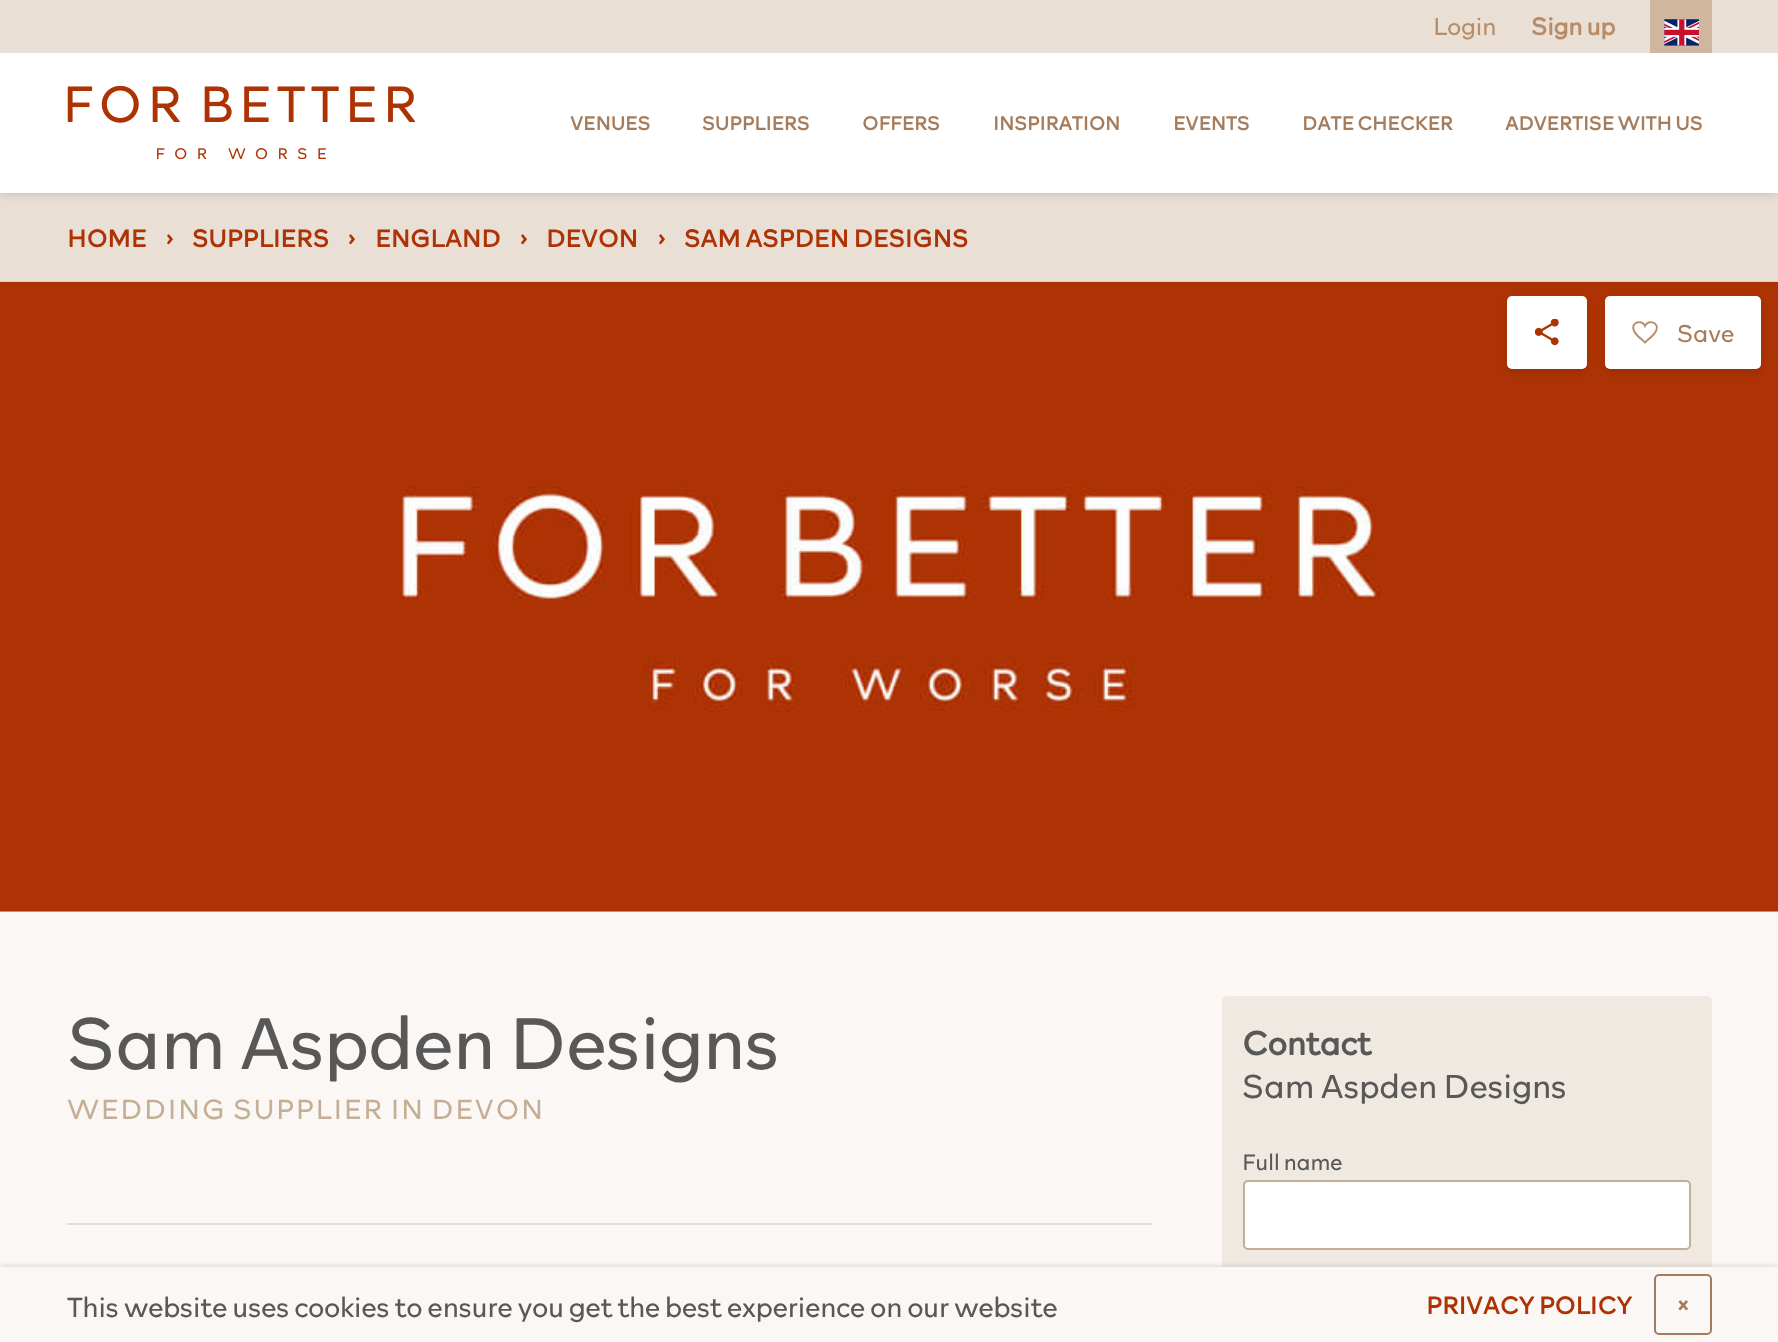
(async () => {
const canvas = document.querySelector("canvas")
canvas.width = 1778
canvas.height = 1342
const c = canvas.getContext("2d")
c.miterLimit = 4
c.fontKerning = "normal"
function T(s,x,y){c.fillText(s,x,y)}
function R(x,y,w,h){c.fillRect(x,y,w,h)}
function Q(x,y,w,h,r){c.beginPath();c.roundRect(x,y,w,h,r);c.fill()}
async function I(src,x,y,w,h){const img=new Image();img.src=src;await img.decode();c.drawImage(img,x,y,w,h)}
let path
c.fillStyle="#faf7f4"
R(0,0,1778,1342)
c.fillStyle="#e9dfd4"
R(0,193,1778,89)
c.fillStyle="#0000001a"
c.filter="blur(3.5px)"
c.beginPath()
c.rect(0,4,1778,192)
c.fill()
c.filter="none"
c.fillStyle="#e9dfd4"
R(0,0,1778,53)
c.font="300 24.5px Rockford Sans"
c.fillStyle="#b78d69"
T("Login",1433,35)
c.font="bold 24.5px Rockford Sans"
T("Sign up",1531,35)
c.fillStyle="#d0b69f"
R(1650,0,62,53)
await I("1.png",1664,19,35,27)
c.fillStyle="#fff"
R(0,53,1778,140)
await I("2.png",67,86,349,73)
c.font="bold 19.25px Rockford Sans"
c.fillStyle="#a57d5d"
T("VENUES",570,130)
T("SUPPLIERS",702,130)
T("OFFERS",862,130)
T("INSPIRATION",993,130)
T("EVENTS",1173,130)
T("DATE CHECKER",1302,130)
T("ADVERTISE WITH US",1505,130)
c.font="bold 24.5px Rockford Sans"
c.fillStyle="#ad3204"
T("HOME",67,247)
T("›",165,247)
T("SUPPLIERS",192,247)
T("›",347,247)
T("ENGLAND",375,247)
T("›",519,247)
T("DEVON",546,247)
T("›",657,247)
T("SAM ASPDEN DESIGNS",684,247)
await I("3.png",0,281,1778,631)
c.fillStyle="#0000001a"
c.filter="blur(3.5px)"
c.beginPath()
c.roundRect(1507,299,80,74,5)
c.fill()
c.filter="none"
c.fillStyle="#fff"
Q(1507,296,80,73,5)
await I("4.png",1535,319,24,27)
c.fillStyle="#0000001a"
c.filter="blur(3.5px)"
c.beginPath()
c.roundRect(1605,299,156,74,5)
c.fill()
c.filter="none"
c.fillStyle="#fff"
Q(1605,296,156,73,5)
path = new Path2D("M1645 326c-3-7.5-15.5-3-11 5c2 4.5 7.5 8 11 11.5c3.5-3.5 9-7 11-11.5c4.5-8-8-12.5-11-5z")
c.strokeStyle="#b78d6a"
c.lineWidth=1.9
c.stroke(path)
c.font="300 24.5px Rockford Sans"
c.fillStyle="#a57d5d"
T("Save",1677,342)
c.font="300 73.5px Rockford Sans"
c.fillStyle="#585858"
T("Sam Aspden Designs",67,1069)
c.letterSpacing="1.6px"
c.font="300 28px Rockford Sans"
c.fillStyle="#c5ae96"
T("WEDDING SUPPLIER IN DEVON",67,1119)
c.fillStyle="#e1dedc"
R(67,1223,1085,2)
c.fillStyle="#f0e9e1"
Q(1222,996,490,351,5)
c.letterSpacing="0px"
c.font="bold 33.5px Rockford Sans"
c.fillStyle="#585858"
T("Contact",1242,1055)
c.font="300 33.5px Rockford Sans"
T("Sam Aspden Designs",1242,1098)
c.font="300 22.5px Rockford Sans"
T("Full name",1242,1170)
c.fillStyle="#fff"
c.beginPath()
c.roundRect(1244,1181,446,68,4)
c.fill()
c.strokeStyle="#c5ae96"
c.lineWidth=2
c.stroke()
c.fillStyle="#0000001a"
c.filter="blur(2px)"
c.beginPath()
c.rect(0,1265,1778,76)
c.fill()
c.filter="none"
c.fillStyle="#faf7f4"
R(0,1267,1778,75)
c.font="300 28px Rockford Sans"
c.fillStyle="#585858"
T("This website uses cookies to ensure you get the best experience on our website",67,1317)
c.font="bold 24.5px Rockford Sans"
c.fillStyle="#ad3204"
T("PRIVACY POLICY",1426,1314)
c.beginPath()
c.roundRect(1655,1275,56,59,4)
c.strokeStyle="#a57d5d"
c.stroke()
c.fillStyle="#a57d5d"
T("×",1677,1314)
})()
